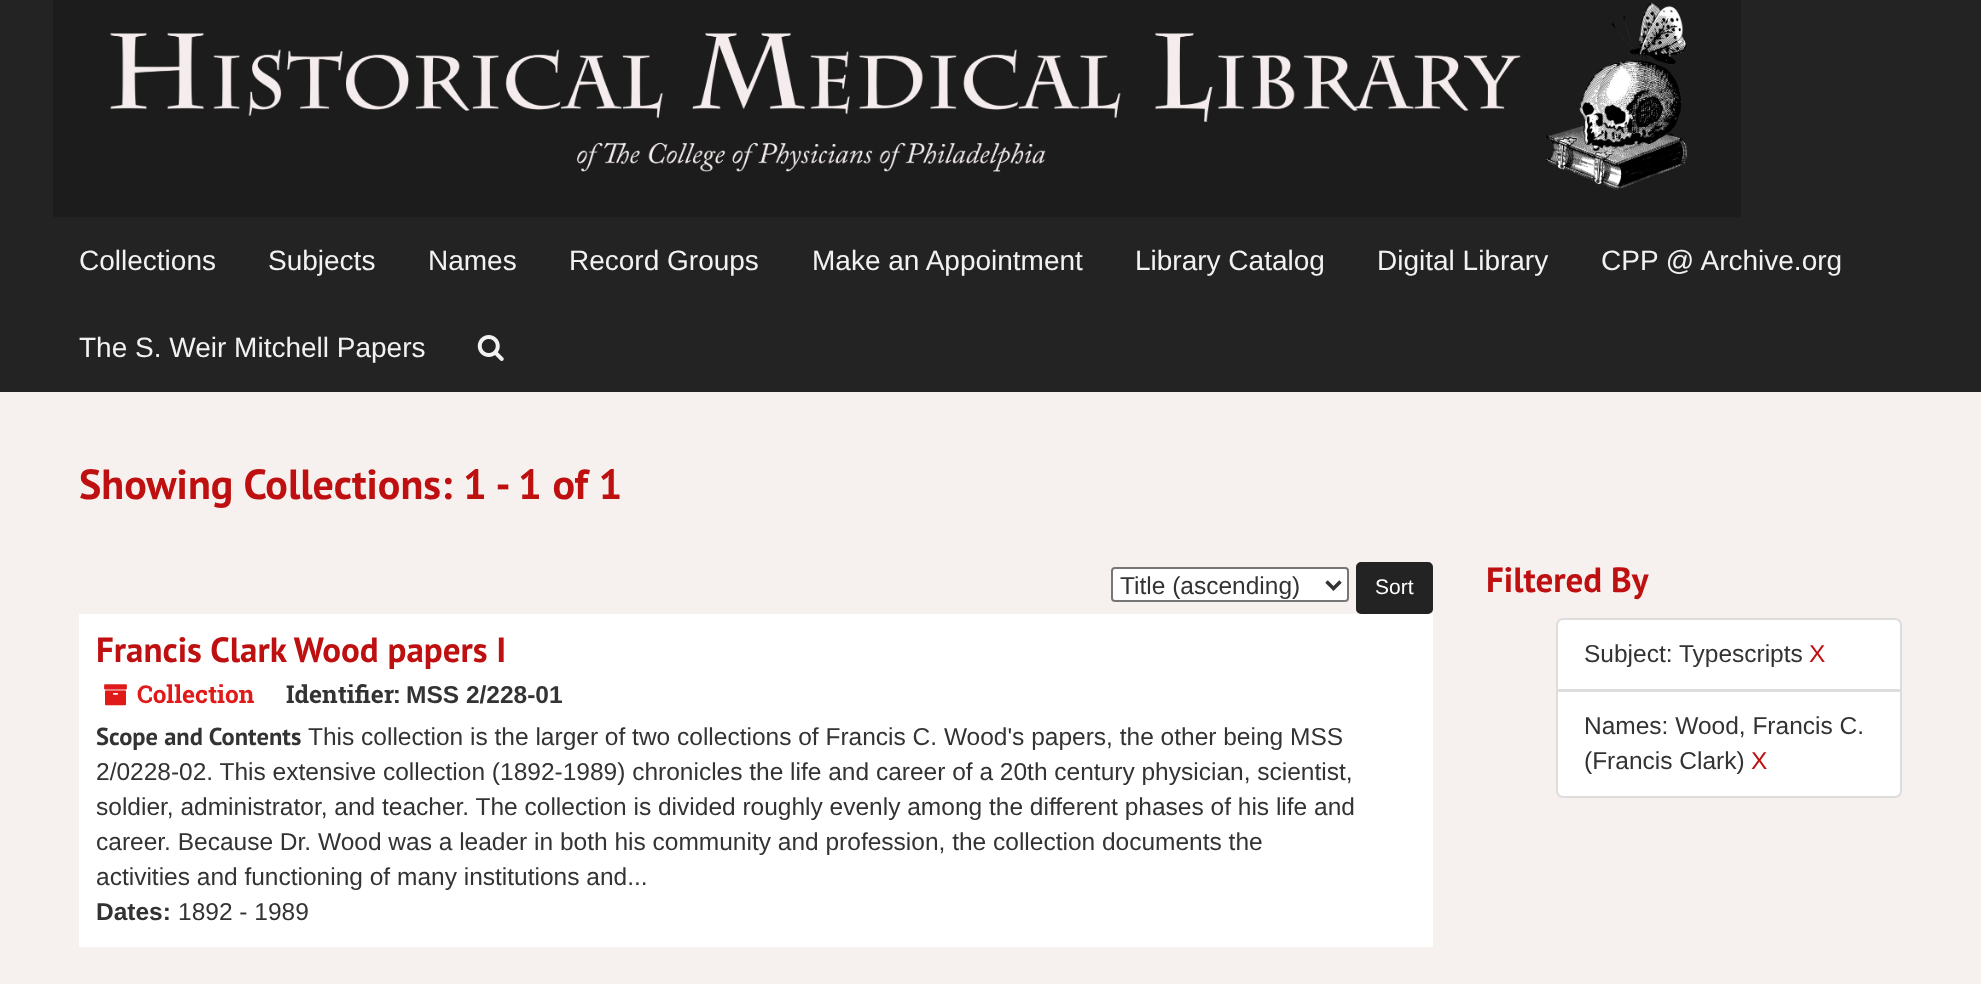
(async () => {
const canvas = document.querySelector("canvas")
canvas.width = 1981
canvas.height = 984
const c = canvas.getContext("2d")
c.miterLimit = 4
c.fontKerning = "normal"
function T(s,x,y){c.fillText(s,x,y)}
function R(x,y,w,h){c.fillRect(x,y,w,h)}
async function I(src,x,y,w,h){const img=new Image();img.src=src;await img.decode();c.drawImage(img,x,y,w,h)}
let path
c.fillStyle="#f6f1ee"
R(0,0,1981,984)
c.fillStyle="#232323"
R(0,0,1981,392)
await I("1.png",53,0,1688,217)
c.font="28px Liberation Sans"
c.fillStyle="#f2f2f2"
T("Collections",79,270)
T("Subjects",268,270)
T("Names",428,270)
T("Record Groups",569,270)
T("Make an Appointment",812,270)
T("Library Catalog",1135,270)
T("Digital Library",1377,270)
T("CPP @ Archive.org",1601,270)
T("The S. Weir Mitchell Papers",79,357)
await I("2.png",477,335,27,26)
c.font="bold 42px PT Sans"
c.fillStyle="#be1010"
T("Showing Collections: 1 - 1 of 1",79,499)
c.fillStyle="#fff"
c.beginPath()
c.roundRect(1112,568,236,33,3)
c.fill()
c.strokeStyle="#767676"
c.lineWidth=2
c.stroke()
path = new Path2D("M1326.5 581.5l7 7l7-7")
c.strokeStyle="#333"
c.lineWidth=3.5
c.stroke(path)
c.font="24.5px Liberation Sans"
c.fillStyle="#333"
T("Title (ascending)",1120,594)
c.fillStyle="#232323"
c.beginPath()
c.roundRect(1357,563,75,50,4)
c.fill()
c.strokeStyle="#232323"
c.lineWidth=2
c.stroke()
c.font="21px Liberation Sans"
c.fillStyle="#fff"
T("Sort",1375,594)
R(79,614,1354,333)
c.font="bold 35px PT Sans"
c.fillStyle="#be1010"
T("Francis Clark Wood papers I",96,662)
await I("3.png",104,684,23,22)
c.font="bold 24.5px Roboto Slab"
c.fillStyle="#e01919"
T("Collection",137,703)
c.fillStyle="#333"
T("Identifier:",286,703)
c.font="bold 24.5px Liberation Sans"
T("MSS 2/228-01",406,703)
c.font="bold 24.5px PT Sans"
T("Scope and Contents",96,745)
c.font="24.5px Liberation Sans"
T("This collection is the larger of two collections of Francis C. Wood's papers, the other being MSS",308,745)
T("2/0228-02. This extensive collection (1892-1989) chronicles the life and career of a 20th century physician, scientist,",96,780)
T("soldier, administrator, and teacher. The collection is divided roughly evenly among the different phases of his life and",96,815)
T("career. Because Dr. Wood was a leader in both his community and profession, the collection documents the",96,850)
T("activities and functioning of many institutions and...",96,885)
c.font="bold 24.5px Liberation Sans"
T("Dates:",96,920)
c.font="24.5px Liberation Sans"
T("1892 - 1989",178,920)
c.font="bold 35px PT Sans"
c.fillStyle="#be1010"
T("Filtered By",1486,592)
c.fillStyle="#fff"
c.beginPath()
c.roundRect(1557,619,344,71,[6,6,0,0])
c.fill()
c.strokeStyle="#ddd"
c.stroke()
c.font="24.5px Liberation Sans"
c.fillStyle="#333"
T("Subject: Typescripts",1584,662)
c.fillStyle="#be1010"
T("X",1809,662)
c.fillStyle="#fff"
c.beginPath()
c.roundRect(1557,691,344,106,[0,0,6,6])
c.fill()
c.stroke()
c.fillStyle="#333"
T("Names: Wood, Francis C.",1584,734)
T("(Francis Clark)",1584,769)
c.fillStyle="#be1010"
T("X",1751,769)
})()
